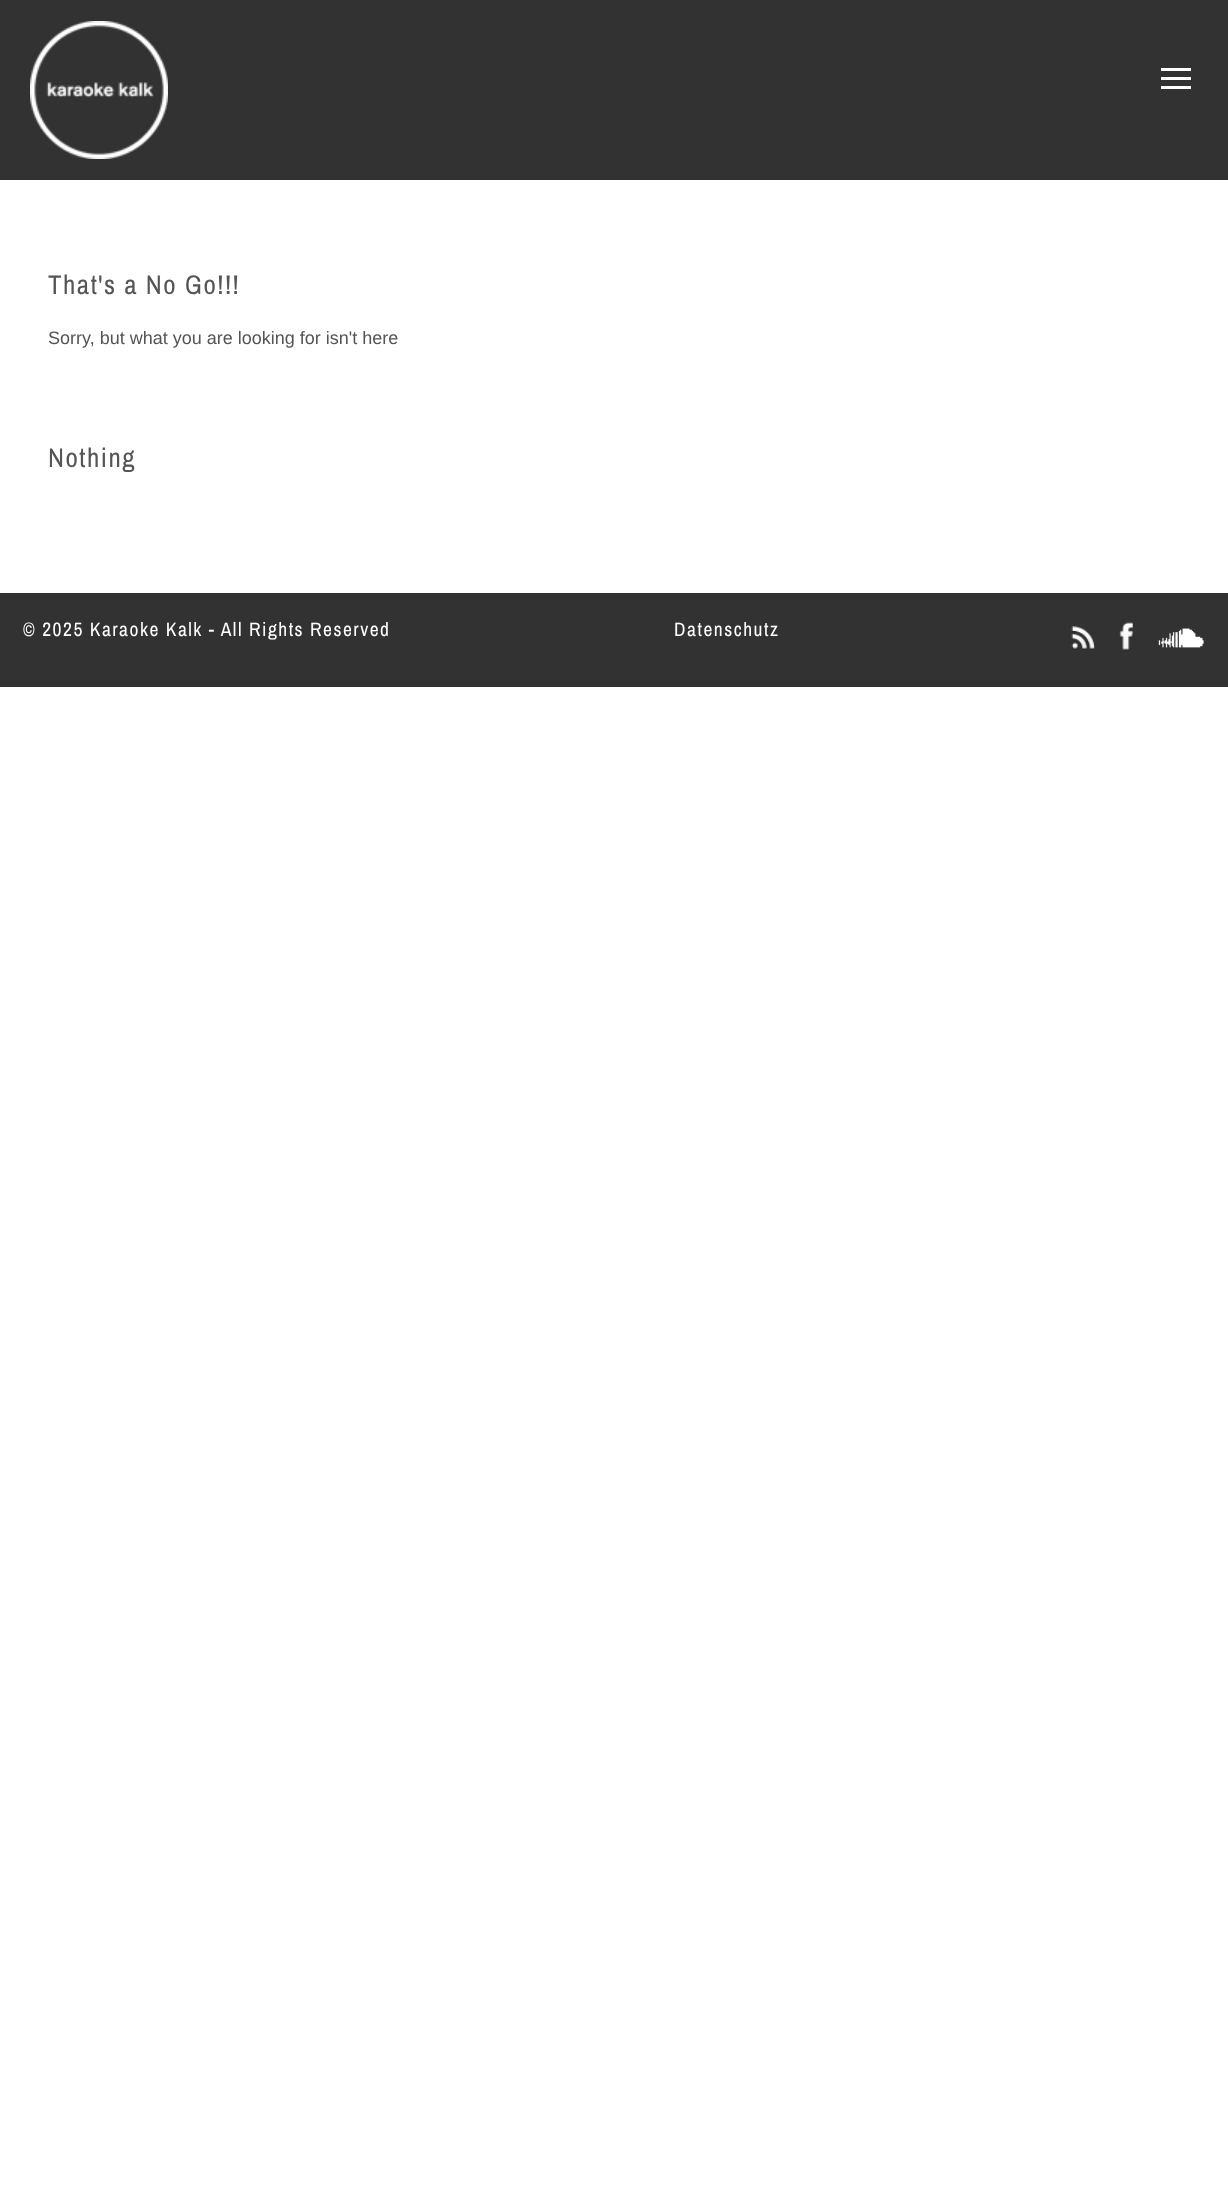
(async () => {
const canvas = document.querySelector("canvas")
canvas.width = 1228
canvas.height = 2190
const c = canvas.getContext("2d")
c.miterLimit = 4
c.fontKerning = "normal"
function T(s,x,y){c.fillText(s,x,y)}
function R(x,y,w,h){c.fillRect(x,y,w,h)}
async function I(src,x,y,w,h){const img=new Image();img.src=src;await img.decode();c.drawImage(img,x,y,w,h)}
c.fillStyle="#fff"
R(0,0,1228,2190)
c.fillStyle="#323232"
R(0,0,1228,180)
await I("1.png",30,21,138,138)
c.fillStyle="#fff"
R(1161,68,30,3)
R(1161,77,30,3)
R(1161,86,30,3)
c.letterSpacing="1.5px"
c.font="27px Archivo Narrow"
c.fillStyle="#555"
T("That's a No Go!!!",48,294)
c.letterSpacing="0px"
c.font="18px Liberation Sans"
T("Sorry, but what you are looking for isn't here",48,344)
c.letterSpacing="1.5px"
c.font="27px Archivo Narrow"
T("Nothing",48,467)
c.fillStyle="#323232"
R(0,593,1228,94)
c.font="19.5px Archivo Narrow"
c.fillStyle="#fefefe"
T("© 2025 Karaoke Kalk - All Rights Reserved",23,636)
T("Datenschutz",674,636)
await I("2.png",1071,626,25,24)
await I("3.png",1119,622,14,29)
await I("4.png",1158,628,46,20)
})()
